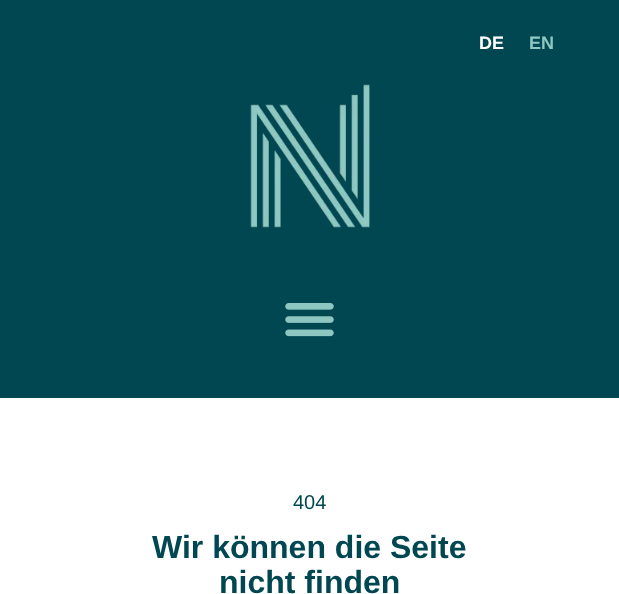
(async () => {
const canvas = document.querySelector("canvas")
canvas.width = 619
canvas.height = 594
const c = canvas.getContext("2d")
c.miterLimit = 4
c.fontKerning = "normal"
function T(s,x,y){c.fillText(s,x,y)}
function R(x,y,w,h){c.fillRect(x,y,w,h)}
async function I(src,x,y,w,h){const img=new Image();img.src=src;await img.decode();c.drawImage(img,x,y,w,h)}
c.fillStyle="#fff"
R(0,0,619,594)
c.fillStyle="#004751"
R(0,0,619,398)
c.font="bold 18px Liberation Sans"
c.fillStyle="#fff"
T("DE",479,49)
c.fillStyle="#8ec7c1"
T("EN",529,49)
await I("1.png",250,84,120,144)
await I("2.png",285,303,49,34)
c.font="20px Liberation Sans"
c.fillStyle="#004751"
T("404",293,509)
c.font="bold 32px Liberation Sans"
T("Wir können die Seite",152,558)
T("nicht finden",219,593)
})()
